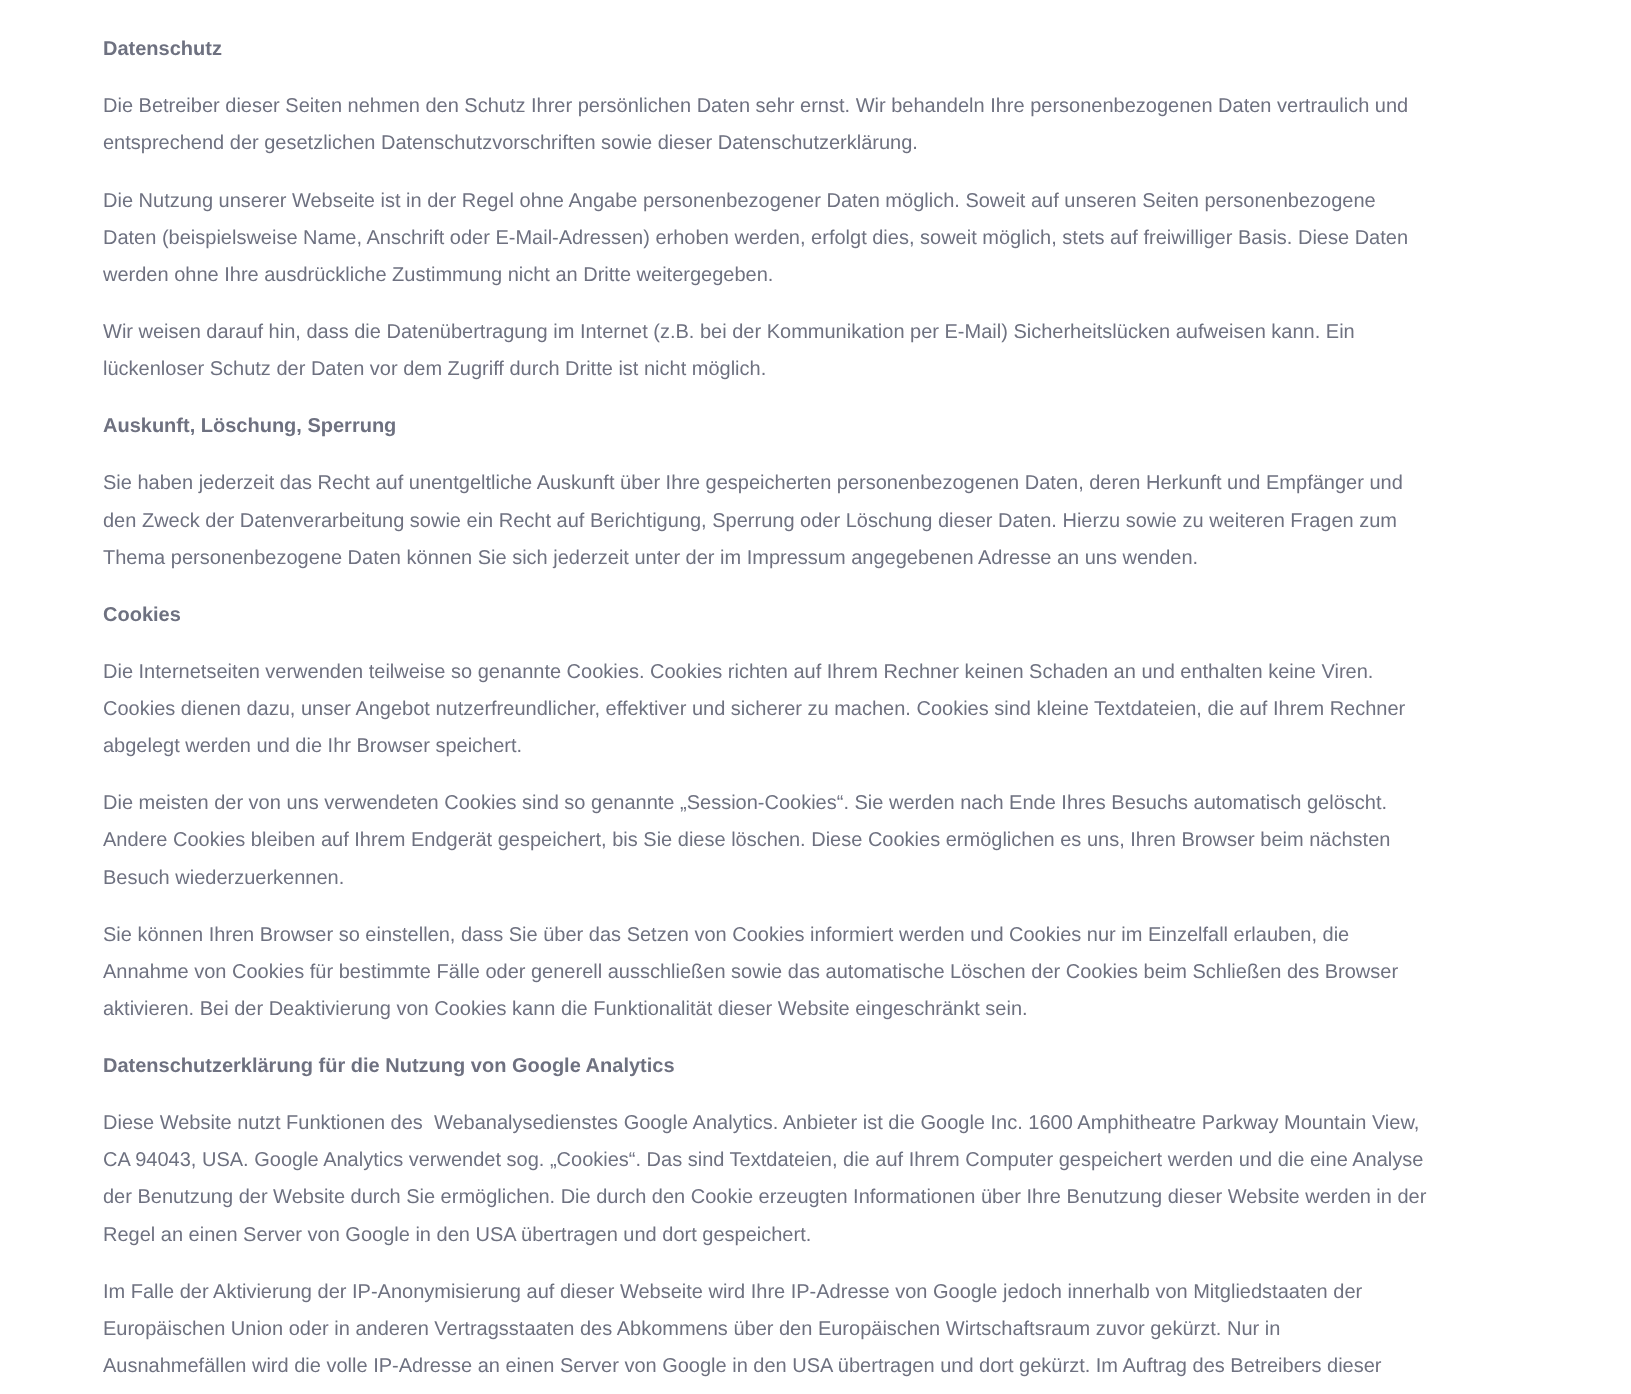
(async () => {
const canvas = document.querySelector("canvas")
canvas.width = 1631
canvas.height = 1394
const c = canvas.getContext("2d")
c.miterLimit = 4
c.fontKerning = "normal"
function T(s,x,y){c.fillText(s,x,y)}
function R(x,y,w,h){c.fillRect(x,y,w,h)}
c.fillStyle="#fff"
R(0,0,1631,1394)
c.font="bold 20px Liberation Sans"
c.fillStyle="#6e7180"
T("Datenschutz",103,55)
c.font="20px Liberation Sans"
T("Die Betreiber dieser Seiten nehmen den Schutz Ihrer persönlichen Daten sehr ernst. Wir behandeln Ihre personenbezogenen Daten vertraulich und",103,112)
T("entsprechend der gesetzlichen Datenschutzvorschriften sowie dieser Datenschutzerklärung.",103,149)
T("Die Nutzung unserer Webseite ist in der Regel ohne Angabe personenbezogener Daten möglich. Soweit auf unseren Seiten personenbezogene",103,207)
T("Daten (beispielsweise Name, Anschrift oder E-Mail-Adressen) erhoben werden, erfolgt dies, soweit möglich, stets auf freiwilliger Basis. Diese Daten",103,244)
T("werden ohne Ihre ausdrückliche Zustimmung nicht an Dritte weitergegeben.",103,281)
T("Wir weisen darauf hin, dass die Datenübertragung im Internet (z.B. bei der Kommunikation per E-Mail) Sicherheitslücken aufweisen kann. Ein",103,338)
T("lückenloser Schutz der Daten vor dem Zugriff durch Dritte ist nicht möglich.",103,375)
c.font="bold 20px Liberation Sans"
T("Auskunft, Löschung, Sperrung",103,432)
c.font="20px Liberation Sans"
T("Sie haben jederzeit das Recht auf unentgeltliche Auskunft über Ihre gespeicherten personenbezogenen Daten, deren Herkunft und Empfänger und",103,489)
T("den Zweck der Datenverarbeitung sowie ein Recht auf Berichtigung, Sperrung oder Löschung dieser Daten. Hierzu sowie zu weiteren Fragen zum",103,527)
T("Thema personenbezogene Daten können Sie sich jederzeit unter der im Impressum angegebenen Adresse an uns wenden.",103,564)
c.font="bold 20px Liberation Sans"
T("Cookies",103,621)
c.font="20px Liberation Sans"
T("Die Internetseiten verwenden teilweise so genannte Cookies. Cookies richten auf Ihrem Rechner keinen Schaden an und enthalten keine Viren.",103,678)
T("Cookies dienen dazu, unser Angebot nutzerfreundlicher, effektiver und sicherer zu machen. Cookies sind kleine Textdateien, die auf Ihrem Rechner",103,715)
T("abgelegt werden und die Ihr Browser speichert.",103,752)
T("Die meisten der von uns verwendeten Cookies sind so genannte „Session-Cookies“. Sie werden nach Ende Ihres Besuchs automatisch gelöscht.",103,809)
T("Andere Cookies bleiben auf Ihrem Endgerät gespeichert, bis Sie diese löschen. Diese Cookies ermöglichen es uns, Ihren Browser beim nächsten",103,846)
T("Besuch wiederzuerkennen.",103,884)
T("Sie können Ihren Browser so einstellen, dass Sie über das Setzen von Cookies informiert werden und Cookies nur im Einzelfall erlauben, die",103,941)
T("Annahme von Cookies für bestimmte Fälle oder generell ausschließen sowie das automatische Löschen der Cookies beim Schließen des Browser",103,978)
T("aktivieren. Bei der Deaktivierung von Cookies kann die Funktionalität dieser Website eingeschränkt sein.",103,1015)
c.font="bold 20px Liberation Sans"
T("Datenschutzerklärung für die Nutzung von Google Analytics",103,1072)
c.font="20px Liberation Sans"
T("Diese Website nutzt Funktionen des  Webanalysedienstes Google Analytics. Anbieter ist die Google Inc. 1600 Amphitheatre Parkway Mountain View,",103,1129)
T("CA 94043, USA. Google Analytics verwendet sog. „Cookies“. Das sind Textdateien, die auf Ihrem Computer gespeichert werden und die eine Analyse",103,1166)
T("der Benutzung der Website durch Sie ermöglichen. Die durch den Cookie erzeugten Informationen über Ihre Benutzung dieser Website werden in der",103,1203)
T("Regel an einen Server von Google in den USA übertragen und dort gespeichert.",103,1241)
T("Im Falle der Aktivierung der IP-Anonymisierung auf dieser Webseite wird Ihre IP-Adresse von Google jedoch innerhalb von Mitgliedstaaten der",103,1298)
T("Europäischen Union oder in anderen Vertragsstaaten des Abkommens über den Europäischen Wirtschaftsraum zuvor gekürzt. Nur in",103,1335)
T("Ausnahmefällen wird die volle IP-Adresse an einen Server von Google in den USA übertragen und dort gekürzt. Im Auftrag des Betreibers dieser",103,1372)
})()
